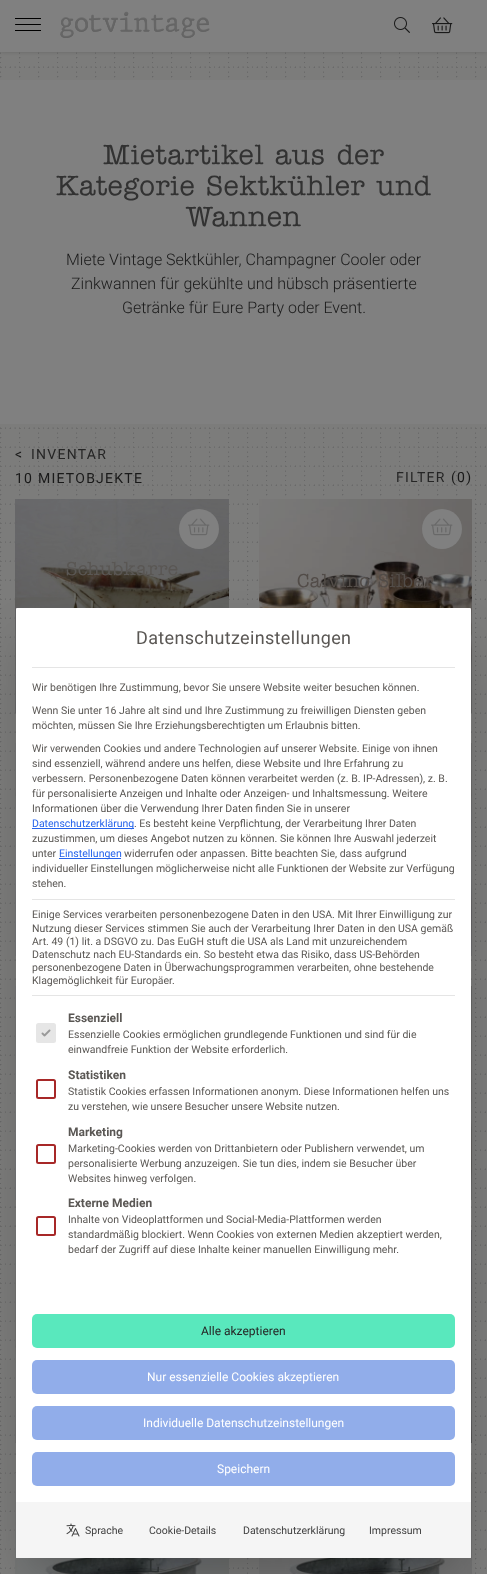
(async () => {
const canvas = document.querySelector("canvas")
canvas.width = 487
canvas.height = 1574
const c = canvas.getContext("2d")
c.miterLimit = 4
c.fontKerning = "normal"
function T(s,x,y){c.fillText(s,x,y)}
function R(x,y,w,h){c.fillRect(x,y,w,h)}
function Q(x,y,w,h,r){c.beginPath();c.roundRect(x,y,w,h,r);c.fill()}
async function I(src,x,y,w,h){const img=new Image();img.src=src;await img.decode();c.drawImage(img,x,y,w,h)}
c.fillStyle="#7c7c7b"
R(0,0,487,1574)
await I("1.png",0,52,486,1522)
c.fillStyle="#0000003b"
c.filter="blur(2.5px)"
c.beginPath()
c.rect(0,1,487,50)
c.fill()
c.filter="none"
c.fillStyle="#808080"
R(0,0,487,52)
await I("2.png",60,11,150,27)
c.fillStyle="#000"
R(15,18,26,1)
Q(15,24,26,1,.5)
R(15,30,26,1)
await I("3.png",394,17,16,16)
await I("4.png",432,17,21,17)
c.fillStyle="#808080"
R(0,80,487,344)
c.letterSpacing="0.5px"
c.font="500 28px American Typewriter"
c.fillStyle="#323232"
T("Mietartikel aus der",103,164)
T("Kategorie Sektkühler und",56,195)
T("Wannen",186,226)
c.letterSpacing="0px"
c.font="300 16px Roboto"
c.fillStyle="#191919"
T("Miete Vintage Sektkühler, Champagner Cooler oder",66,265)
T("Zinkwannen für gekühlte und hübsch präsentierte",71,289)
T("Getränke für Eure Party oder Event.",122,313)
c.letterSpacing="1.25px"
c.font="14px Roboto"
T("<",15,459)
c.fillStyle="#252525"
T("INVENTAR",31,459)
c.fillStyle="#191919"
T("10 MIETOBJEKTE",15,483)
c.fillStyle="#252525"
T("FILTER",396,482)
c.fillStyle="#191919"
T("(0)",451,482)
await I("5.png",15,499,214,214)
c.fillStyle="#808080"
c.beginPath()
c.arc(199,529,20,0,7)
c.fill()
await I("6.png",188,518,22,18)
c.letterSpacing="0.25px"
c.font="500 19px American Typewriter"
c.fillStyle="#5a5754"
T("Schubkarre",66,575)
await I("7.png",259,499,213,214)
c.fillStyle="#808080"
c.beginPath()
c.arc(442,529,20,0,7)
c.fill()
await I("6.png",431,518,22,18)
c.fillStyle="#524c48"
T("Calvino Silber",297,587)
await I("8.png",15,743,1,213)
await I("9.png",471,743,1,213)
await I("10.png",15,986,1,214)
await I("11.png",471,986,1,214)
await I("12.png",15,1230,1,213)
await I("13.png",471,1230,1,213)
await I("14.png",15,1473,214,101)
c.fillStyle="#343838"
T("L",147,1572)
await I("15.png",259,1473,213,101)
T("L",398,1572)
c.fillStyle="#00000040"
c.filter="blur(25px)"
c.beginPath()
c.rect(28,645,431,926)
c.fill()
c.filter="none"
c.fillStyle="#fff"
Q(16,608,455,950,1)
c.fillStyle="#e5e5e5"
R(32,667,423,1)
c.letterSpacing="0.35px"
c.font="18px Roboto"
c.fillStyle="#5a5754"
T("Datenschutzeinstellungen",136,644)
c.letterSpacing="0px"
c.font="10.5px Roboto"
T("Wir benötigen Ihre Zustimmung, bevor Sie unsere Website weiter besuchen können.",32,691)
T("Wenn Sie unter 16 Jahre alt sind und Ihre Zustimmung zu freiwilligen Diensten geben",32,714)
T("möchten, müssen Sie Ihre Erziehungsberechtigten um Erlaubnis bitten.",32,729)
T("Wir verwenden Cookies und andere Technologien auf unserer Website. Einige von ihnen",32,752)
T("sind essenziell, während andere uns helfen, diese Website und Ihre Erfahrung zu",32,767)
T("verbessern. Personenbezogene Daten können verarbeitet werden (z. B. IP-Adressen), z. B.",32,782)
T("für personalisierte Anzeigen und Inhalte oder Anzeigen- und Inhaltsmessung. Weitere",32,797)
T("Informationen über die Verwendung Ihrer Daten finden Sie in unserer",32,812)
c.fillStyle="#2563eb"
R(32,828,102,1)
T("Datenschutzerklärung",32,827)
c.fillStyle="#5a5754"
T(". Es besteht keine Verpflichtung, der Verarbeitung Ihrer Daten",134,827)
T("zuzustimmen, um dieses Angebot nutzen zu können. Sie können Ihre Auswahl jederzeit",32,842)
T("unter",32,857)
c.fillStyle="#2563eb"
R(59,858,62,1)
T("Einstellungen",59,857)
c.fillStyle="#5a5754"
T("widerrufen oder anpassen. Bitte beachten Sie, dass aufgrund",124,857)
T("individueller Einstellungen möglicherweise nicht alle Funktionen der Website zur Verfügung",32,872)
T("stehen.",32,887)
c.fillStyle="#e5e5e5"
R(32,899,423,1)
R(32,995,423,1)
c.fillStyle="#5a5754"
T("Einige Services verarbeiten personenbezogene Daten in den USA. Mit Ihrer Einwilligung zur",32,918)
T("Nutzung dieser Services stimmen Sie auch der Verarbeitung Ihrer Daten in den USA gemäß",32,932)
T("Art. 49 (1) lit. a DSGVO zu. Das EuGH stuft die USA als Land mit unzureichendem",32,945)
T("Datenschutz nach EU-Standards ein. So besteht etwa das Risiko, dass US-Behörden",32,958)
T("personenbezogene Daten in Überwachungsprogrammen verarbeiten, ohne bestehende",32,971)
T("Klagemöglichkeit für Europäer.",32,984)
c.fillStyle="#e6e6e6"
c.beginPath()
c.roundRect(37,1024,18,18,1.5)
c.fill()
c.strokeStyle="#e6e6e6"
c.lineWidth=2
c.stroke()
await I("16.png",41,1029,10,8)
c.font="bold 12px Roboto"
c.fillStyle="#5a5754"
T("Essenziell",68,1022)
c.font="10.5px Roboto"
T("Essenzielle Cookies ermöglichen grundlegende Funktionen und sind für die",68,1038)
T("einwandfreie Funktion der Website erforderlich.",68,1053)
c.beginPath()
c.roundRect(37,1080,18,18,1.5)
c.strokeStyle="#a72828"
c.stroke()
c.font="bold 12px Roboto"
T("Statistiken",68,1079)
c.font="10.5px Roboto"
T("Statistik Cookies erfassen Informationen anonym. Diese Informationen helfen uns",68,1095)
T("zu verstehen, wie unsere Besucher unsere Website nutzen.",68,1110)
c.beginPath()
c.roundRect(37,1145,18,18,1.5)
c.stroke()
c.font="bold 12px Roboto"
T("Marketing",68,1136)
c.font="10.5px Roboto"
T("Marketing-Cookies werden von Drittanbietern oder Publishern verwendet, um",68,1152)
T("personalisierte Werbung anzuzeigen. Sie tun dies, indem sie Besucher über",68,1167)
T("Websites hinweg verfolgen.",68,1182)
c.beginPath()
c.roundRect(37,1217,18,18,1.5)
c.stroke()
c.font="bold 12px Roboto"
T("Externe Medien",68,1207)
c.font="10.5px Roboto"
T("Inhalte von Videoplattformen und Social-Media-Plattformen werden",68,1223)
T("standardmäßig blockiert. Wenn Cookies von externen Medien akzeptiert werden,",68,1238)
T("bedarf der Zugriff auf diese Inhalte keiner manuellen Einwilligung mehr.",68,1253)
c.fillStyle="#59e8bd"
Q(32,1314,423,34,5)
c.font="12px Roboto"
c.fillStyle="#252525"
T("Alle akzeptieren",201,1335)
c.fillStyle="#91adea"
Q(32,1360,423,34,5)
c.fillStyle="#fff"
T("Nur essenzielle Cookies akzeptieren",147,1381)
c.fillStyle="#91adea"
Q(32,1406,423,34,5)
c.fillStyle="#fff"
T("Individuelle Datenschutzeinstellungen",143,1427)
c.fillStyle="#91adea"
Q(32,1452,423,34,5)
c.fillStyle="#fff"
T("Speichern",217,1473)
c.fillStyle="#f5f5f5"
c.beginPath()
c.roundRect(16,1502,455,56,[0,0,1,1])
c.fill()
await I("17.png",66,1523,14,14)
c.font="10.5px Roboto"
c.fillStyle="#404040"
T("Sprache",85,1534)
T("Cookie-Details",149,1534)
T("Datenschutzerklärung",243,1534)
T("Impressum",369,1534)
})()
